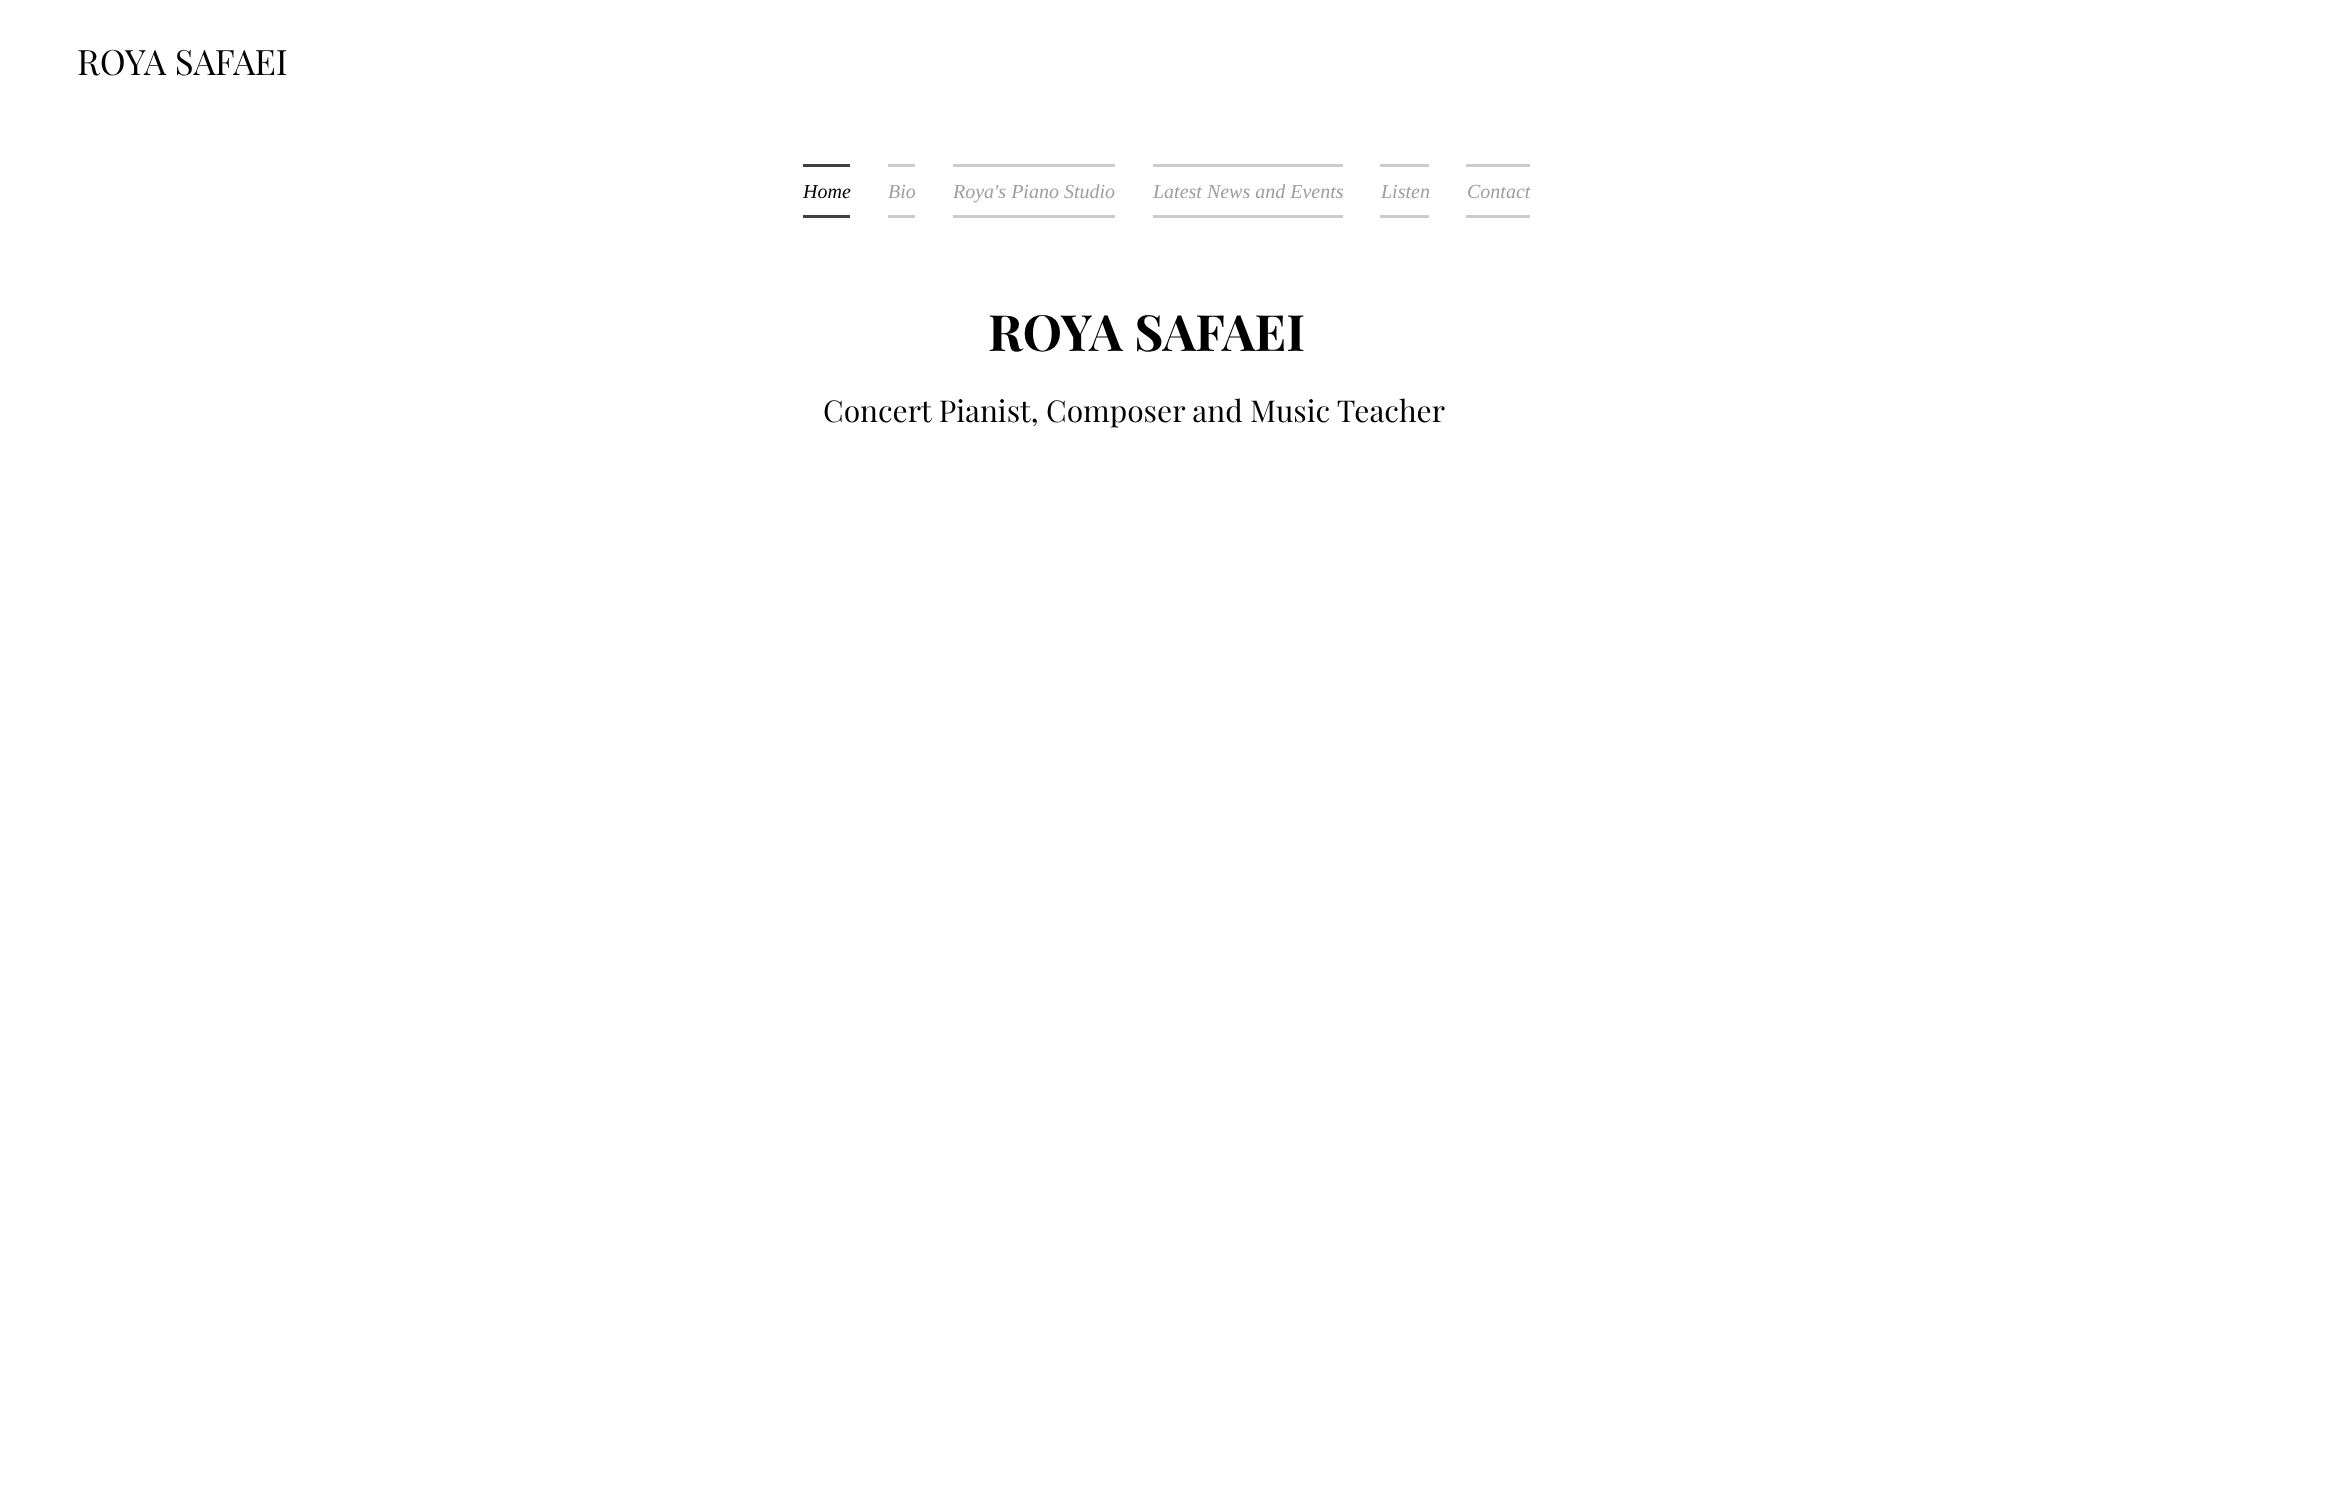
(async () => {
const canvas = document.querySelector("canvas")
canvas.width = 2333
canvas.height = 1486
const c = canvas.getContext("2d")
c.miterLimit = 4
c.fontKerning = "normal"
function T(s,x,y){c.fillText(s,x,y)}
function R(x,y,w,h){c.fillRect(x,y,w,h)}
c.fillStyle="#fff"
R(0,0,2333,1486)
c.font="35px Playfair Display"
c.fillStyle="#000"
T("ROYA SAFAEI",77,75)
c.fillStyle="#414141"
R(803,164,47,3)
R(803,215,47,3)
c.font="italic 20px Liberation Serif"
c.fillStyle="#000"
T("Home",803,198)
c.fillStyle="#ccc"
R(888,164,27,3)
R(888,215,27,3)
c.fillStyle="#9e9e9e"
T("Bio",888,198)
c.fillStyle="#ccc"
R(953,164,162,3)
R(953,215,162,3)
c.fillStyle="#9e9e9e"
T("Roya's Piano Studio",953,198)
c.fillStyle="#ccc"
R(1153,164,190,3)
R(1153,215,190,3)
c.fillStyle="#9e9e9e"
T("Latest News and Events",1153,198)
c.fillStyle="#ccc"
R(1380,164,49,3)
R(1380,215,49,3)
c.fillStyle="#9e9e9e"
T("Listen",1381,198)
c.fillStyle="#ccc"
R(1466,164,64,3)
R(1466,215,64,3)
c.fillStyle="#9e9e9e"
T("Contact",1467,198)
c.font="bold 50px Playfair Display"
c.fillStyle="#000"
T("ROYA SAFAEI",988,351)
c.font="30px Playfair Display"
T("Concert Pianist, Composer and Music Teacher",823,422)
})()
